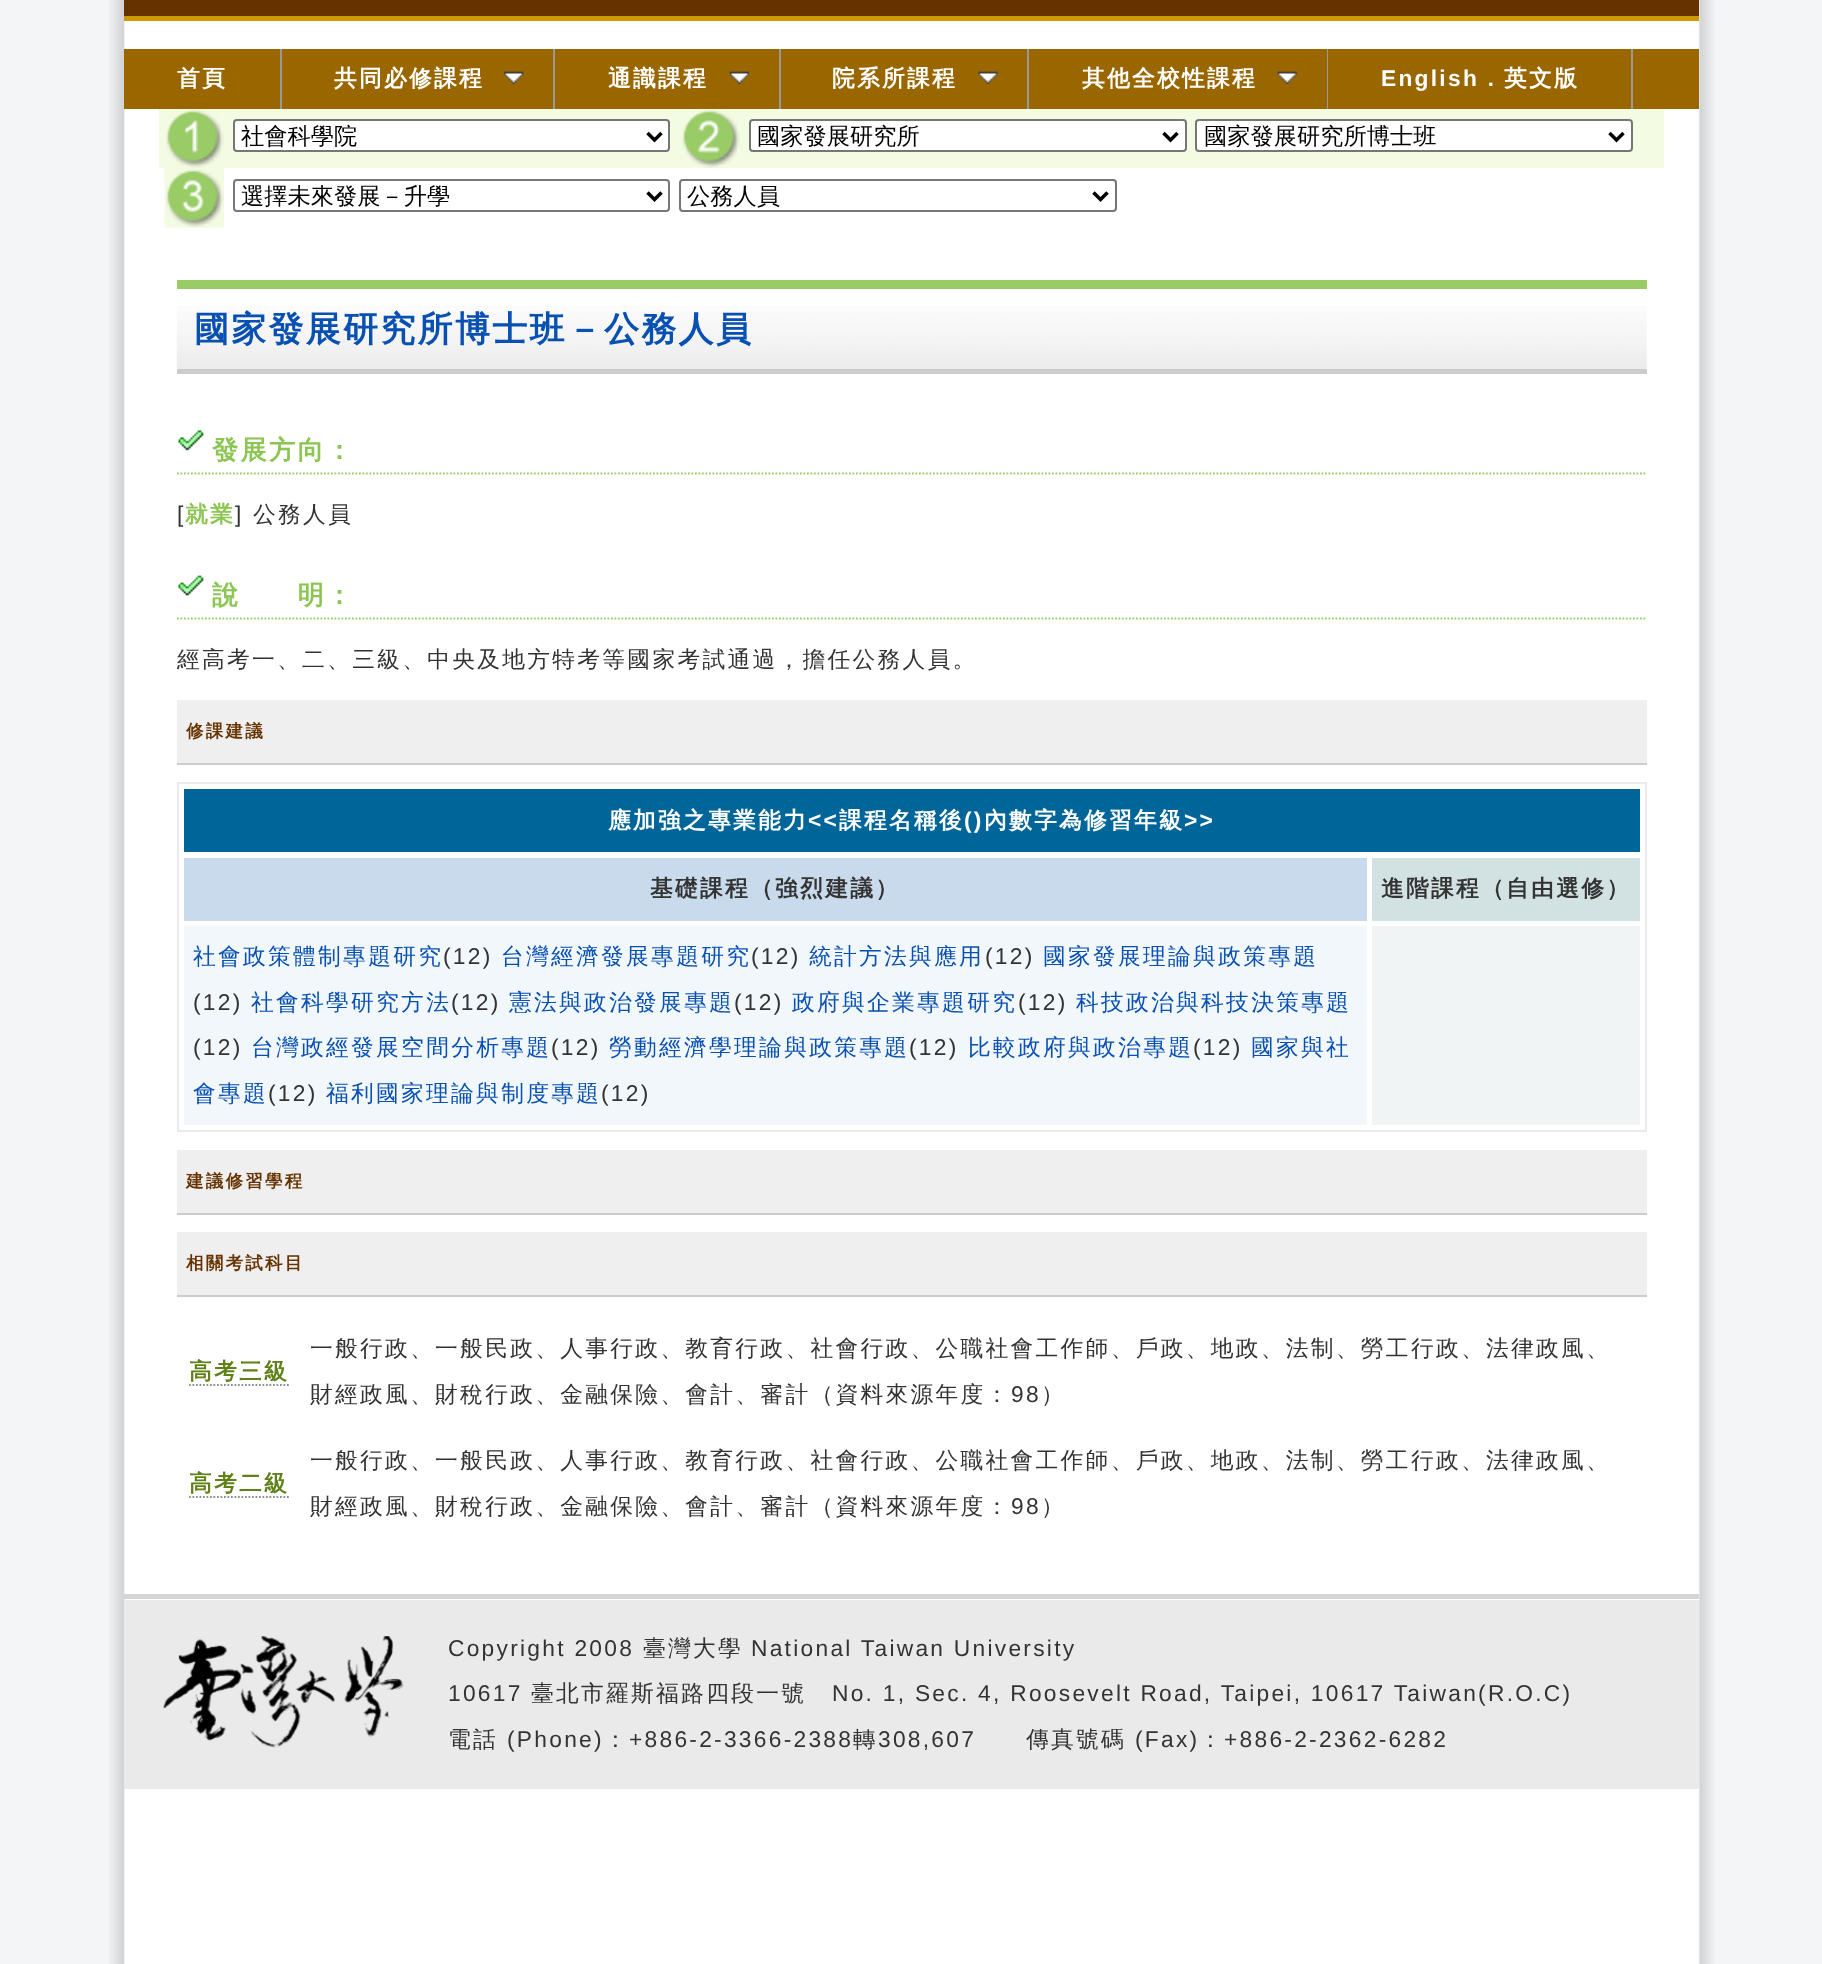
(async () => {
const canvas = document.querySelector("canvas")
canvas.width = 1822
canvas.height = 1964
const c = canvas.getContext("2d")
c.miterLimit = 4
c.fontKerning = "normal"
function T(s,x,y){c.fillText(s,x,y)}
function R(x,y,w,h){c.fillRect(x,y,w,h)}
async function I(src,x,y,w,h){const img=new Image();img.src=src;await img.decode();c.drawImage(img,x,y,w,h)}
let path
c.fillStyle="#fff"
R(0,0,1822,1964)
await I("1.png",0,0,1822,1964)
c.fillStyle="#630"
R(124,0,1575,16)
c.fillStyle="#c90"
R(124,16,1575,5)
c.fillStyle="#960"
R(282,49,1417,60)
R(124,49,156,60)
c.fillStyle="#999"
R(280,49,2,60)
c.letterSpacing="2.27px"
c.font="bold 22.75px WenQuanYi Zen Hei"
c.fillStyle="#fff"
T("首頁",177,86)
c.fillStyle="#999"
R(553,49,2,60)
c.fillStyle="#fff"
T("共同必修課程",334,86)
await I("2.png",504,71,20,13)
c.fillStyle="#999"
R(779,49,2,60)
c.fillStyle="#fff"
T("通識課程",608,86)
await I("3.png",729,71,20,13)
c.fillStyle="#999"
R(1027,49,2,60)
c.fillStyle="#fff"
T("院系所課程",832,86)
await I("4.png",978,71,20,13)
c.fillStyle="#999"
R(1327,49,1,60)
c.fillStyle="#fff"
T("其他全校性課程",1082,86)
await I("5.png",1277,71,20,13)
c.fillStyle="#999"
R(1631,49,2,60)
c.font="bold 22.75px Liberation Sans"
c.fillStyle="#fff"
T("English",1381,86)
c.font="bold 22.75px WenQuanYi Zen Hei"
T("．英文版",1479,86)
c.fillStyle="#f3fbe3"
R(159,109,1505,59)
await I("6.png",164,109,60,59)
c.fillStyle="#fff"
c.beginPath()
c.roundRect(234,120,435,31,3)
c.fill()
c.strokeStyle="#767676"
c.lineWidth=2
c.stroke()
path = new Path2D("M647.5 133l7 7l7-7")
c.strokeStyle="#000"
c.lineWidth=3.5
c.stroke(path)
c.letterSpacing="0px"
c.font="500 23.25px WenQuanYi Zen Hei"
c.fillStyle="#000"
T("社會科學院",241,144)
await I("7.png",680,109,61,59)
c.fillStyle="#fff"
c.beginPath()
c.roundRect(750,120,436,31,3)
c.fill()
c.strokeStyle="#767676"
c.lineWidth=2
c.stroke()
path = new Path2D("M1163.5 133l7 7l7-7")
c.strokeStyle="#000"
c.lineWidth=3.5
c.stroke(path)
c.fillStyle="#000"
T("國家發展研究所",757,144)
c.fillStyle="#fff"
c.beginPath()
c.roundRect(1196,120,436,31,3)
c.fill()
c.strokeStyle="#767676"
c.lineWidth=2
c.stroke()
path = new Path2D("M1609.5 133l7 7l7-7")
c.strokeStyle="#000"
c.lineWidth=3.5
c.stroke(path)
c.fillStyle="#000"
T("國家發展研究所博士班",1204,144)
await I("8.png",164,168,60,60)
c.beginPath()
c.roundRect(234,180,435,31,3)
c.strokeStyle="#767676"
c.lineWidth=2
c.stroke()
path = new Path2D("M647.5 192.5l7 7l7-7")
c.strokeStyle="#000"
c.lineWidth=3.5
c.stroke(path)
T("選擇未來發展－升學",241,204)
c.beginPath()
c.roundRect(680,180,436,31,3)
c.strokeStyle="#767676"
c.lineWidth=2
c.stroke()
path = new Path2D("M1093.5 192.5l7 7l7-7")
c.strokeStyle="#000"
c.lineWidth=3.5
c.stroke(path)
T("公務人員",687,204)
await I("9.png",176,306,1471,64)
c.fillStyle="#9c6"
R(177,280,1470,9)
c.fillStyle="#ccc"
R(177,369,1470,5)
c.letterSpacing="2.27px"
c.font="bold 35px WenQuanYi Zen Hei"
c.fillStyle="#0850b2"
T("國家發展研究所博士班－公務人員",194,341)
await I("10.png",178,430,26,21)
path = new Path2D("M177 473.5h1470")
c.strokeStyle="#9c6"
c.lineWidth=1.8
c.setLineDash([1.75,1.75])
c.stroke(path)
c.font="bold 26.25px WenQuanYi Zen Hei"
c.fillStyle="#8bc552"
T("發展方向：",212,459)
c.font="22.75px Liberation Sans"
c.fillStyle="#333"
T("[",177,522)
c.font="bold 22.75px WenQuanYi Zen Hei"
c.fillStyle="#8bc552"
T("就業",185,522)
c.font="22.75px Liberation Sans"
c.fillStyle="#333"
T("]",235,522)
c.font="500 22.75px WenQuanYi Zen Hei"
T("公務人員",253,522)
await I("11.png",178,575,26,21)
path = new Path2D("M177 618.5h1470")
c.stroke(path)
c.font="bold 26.25px WenQuanYi Zen Hei"
c.fillStyle="#8bc552"
T("說　　明：",212,604)
c.font="500 22.75px WenQuanYi Zen Hei"
c.fillStyle="#333"
T("經高考一、二、三級、中央及地方特考等國家考試通過，擔任公務人員。",177,667)
c.fillStyle="#efefef"
R(177,700,1470,63)
c.fillStyle="#ccc"
R(177,763,1470,2)
c.font="bold 17.5px WenQuanYi Zen Hei"
c.fillStyle="#630"
T("修課建議",186,737)
c.strokeStyle="#ebebeb"
c.lineWidth=2
c.setLineDash([])
c.strokeRect(178,783,1468,348)
c.fillStyle="#069"
R(184,789,1456,63)
c.font="bold 22.75px WenQuanYi Zen Hei"
c.fillStyle="#fff"
T("應加強之專業能力",608,828)
c.font="bold 22.75px Liberation Sans"
T("<<",808,828)
c.font="bold 22.75px WenQuanYi Zen Hei"
T("課程名稱後",839,828)
c.font="bold 22.75px Liberation Sans"
T("()",964,828)
c.font="bold 22.75px WenQuanYi Zen Hei"
T("內數字為修習年級",984,828)
c.font="bold 22.75px Liberation Sans"
T(">>",1184,828)
c.fillStyle="#c8daec"
R(184,858,1183,63)
c.font="bold 22.75px WenQuanYi Zen Hei"
c.fillStyle="#333"
T("基礎課程（強烈建議）",650,896)
c.fillStyle="#d2e1e1"
R(1372,858,268,63)
c.fillStyle="#333"
T("進階課程（自由選修）",1381,896)
c.fillStyle="#f2f7fb"
R(184,926,1183,199)
c.font="500 22.75px WenQuanYi Zen Hei"
c.fillStyle="#0850b2"
T("社會政策體制專題研究",193,964)
c.font="22.75px Liberation Sans"
c.fillStyle="#333"
T("(12)",443,964)
c.font="500 22.75px WenQuanYi Zen Hei"
c.fillStyle="#0850b2"
T("台灣經濟發展專題研究",501,964)
c.font="22.75px Liberation Sans"
c.fillStyle="#333"
T("(12)",751,964)
c.font="500 22.75px WenQuanYi Zen Hei"
c.fillStyle="#0850b2"
T("統計方法與應用",809,964)
c.font="22.75px Liberation Sans"
c.fillStyle="#333"
T("(12)",985,964)
c.font="500 22.75px WenQuanYi Zen Hei"
c.fillStyle="#0850b2"
T("國家發展理論與政策專題",1043,964)
c.font="22.75px Liberation Sans"
c.fillStyle="#333"
T("(12)",193,1010)
c.font="500 22.75px WenQuanYi Zen Hei"
c.fillStyle="#0850b2"
T("社會科學研究方法",251,1010)
c.font="22.75px Liberation Sans"
c.fillStyle="#333"
T("(12)",451,1010)
c.font="500 22.75px WenQuanYi Zen Hei"
c.fillStyle="#0850b2"
T("憲法與政治發展專題",509,1010)
c.font="22.75px Liberation Sans"
c.fillStyle="#333"
T("(12)",734,1010)
c.font="500 22.75px WenQuanYi Zen Hei"
c.fillStyle="#0850b2"
T("政府與企業專題研究",792,1010)
c.font="22.75px Liberation Sans"
c.fillStyle="#333"
T("(12)",1018,1010)
c.font="500 22.75px WenQuanYi Zen Hei"
c.fillStyle="#0850b2"
T("科技政治與科技決策專題",1076,1010)
c.font="22.75px Liberation Sans"
c.fillStyle="#333"
T("(12)",193,1055)
c.font="500 22.75px WenQuanYi Zen Hei"
c.fillStyle="#0850b2"
T("台灣政經發展空間分析專題",251,1055)
c.font="22.75px Liberation Sans"
c.fillStyle="#333"
T("(12)",551,1055)
c.font="500 22.75px WenQuanYi Zen Hei"
c.fillStyle="#0850b2"
T("勞動經濟學理論與政策專題",609,1055)
c.font="22.75px Liberation Sans"
c.fillStyle="#333"
T("(12)",909,1055)
c.font="500 22.75px WenQuanYi Zen Hei"
c.fillStyle="#0850b2"
T("比較政府與政治專題",968,1055)
c.font="22.75px Liberation Sans"
c.fillStyle="#333"
T("(12)",1193,1055)
c.font="500 22.75px WenQuanYi Zen Hei"
c.fillStyle="#0850b2"
T("國家與社",1251,1055)
T("會專題",193,1101)
c.font="22.75px Liberation Sans"
c.fillStyle="#333"
T("(12)",268,1101)
c.font="500 22.75px WenQuanYi Zen Hei"
c.fillStyle="#0850b2"
T("福利國家理論與制度專題",326,1101)
c.font="22.75px Liberation Sans"
c.fillStyle="#333"
T("(12)",601,1101)
c.fillStyle="#f0f4f4"
R(1372,926,268,199)
c.fillStyle="#efefef"
R(177,1150,1470,63)
c.fillStyle="#ccc"
R(177,1213,1470,2)
c.font="bold 17.5px WenQuanYi Zen Hei"
c.fillStyle="#630"
T("建議修習學程",186,1187)
c.fillStyle="#efefef"
R(177,1232,1470,63)
c.fillStyle="#ccc"
R(177,1295,1470,2)
c.fillStyle="#630"
T("相關考試科目",186,1269)
c.font="bold 22.75px WenQuanYi Zen Hei"
c.fillStyle="#608117"
T("高考三級",189,1379)
path = new Path2D("M189 1385h100")
c.strokeStyle="#8a8f95"
c.lineWidth=1.8
c.setLineDash([1.75,1.75])
c.stroke(path)
c.font="500 22.75px WenQuanYi Zen Hei"
c.fillStyle="#333"
T("一般行政、一般民政、人事行政、教育行政、社會行政、公職社會工作師、戶政、地政、法制、勞工行政、法律政風、",310,1356)
T("財經政風、財稅行政、金融保險、會計、審計（資料來源年度：",310,1402)
c.font="22.75px Liberation Sans"
T("98",1011,1402)
c.font="500 22.75px WenQuanYi Zen Hei"
T("）",1041,1402)
c.font="bold 22.75px WenQuanYi Zen Hei"
c.fillStyle="#608117"
T("高考二級",189,1491)
path = new Path2D("M189 1497h100")
c.stroke(path)
c.font="500 22.75px WenQuanYi Zen Hei"
c.fillStyle="#333"
T("一般行政、一般民政、人事行政、教育行政、社會行政、公職社會工作師、戶政、地政、法制、勞工行政、法律政風、",310,1468)
T("財經政風、財稅行政、金融保險、會計、審計（資料來源年度：",310,1514)
c.font="22.75px Liberation Sans"
T("98",1011,1514)
c.font="500 22.75px WenQuanYi Zen Hei"
T("）",1041,1514)
c.fillStyle="#d6d5d5"
R(124,1594,1575,5)
c.fillStyle="#eaeaea"
R(124,1600,1575,189)
await I("12.png",163,1636,241,112)
c.font="22.75px Liberation Sans"
c.fillStyle="#333"
T("Copyright 2008",448,1656)
c.font="500 22.75px WenQuanYi Zen Hei"
T("臺灣大學",643,1656)
c.font="22.75px Liberation Sans"
T("National Taiwan University",751,1656)
T("10617",448,1701)
c.font="500 22.75px WenQuanYi Zen Hei"
T("臺北市羅斯福路四段一號",531,1701)
c.font="22.75px Liberation Sans"
T("No. 1, Sec. 4, Roosevelt Road, Taipei, 10617 Taiwan(R.O.C)",832,1701)
c.font="500 22.75px WenQuanYi Zen Hei"
T("電話",448,1747)
c.font="22.75px Liberation Sans"
T("(Phone)",507,1747)
c.font="500 22.75px WenQuanYi Zen Hei"
T("：",604,1747)
c.font="22.75px Liberation Sans"
T("+886-2-3366-2388",629,1747)
c.font="500 22.75px WenQuanYi Zen Hei"
T("轉",853,1747)
c.font="22.75px Liberation Sans"
T("308,607",878,1747)
c.font="500 22.75px WenQuanYi Zen Hei"
T("傳真號碼",1026,1747)
c.font="22.75px Liberation Sans"
T("(Fax)",1135,1747)
c.font="500 22.75px WenQuanYi Zen Hei"
T("：",1199,1747)
c.font="22.75px Liberation Sans"
T("+886-2-2362-6282",1224,1747)
})()
